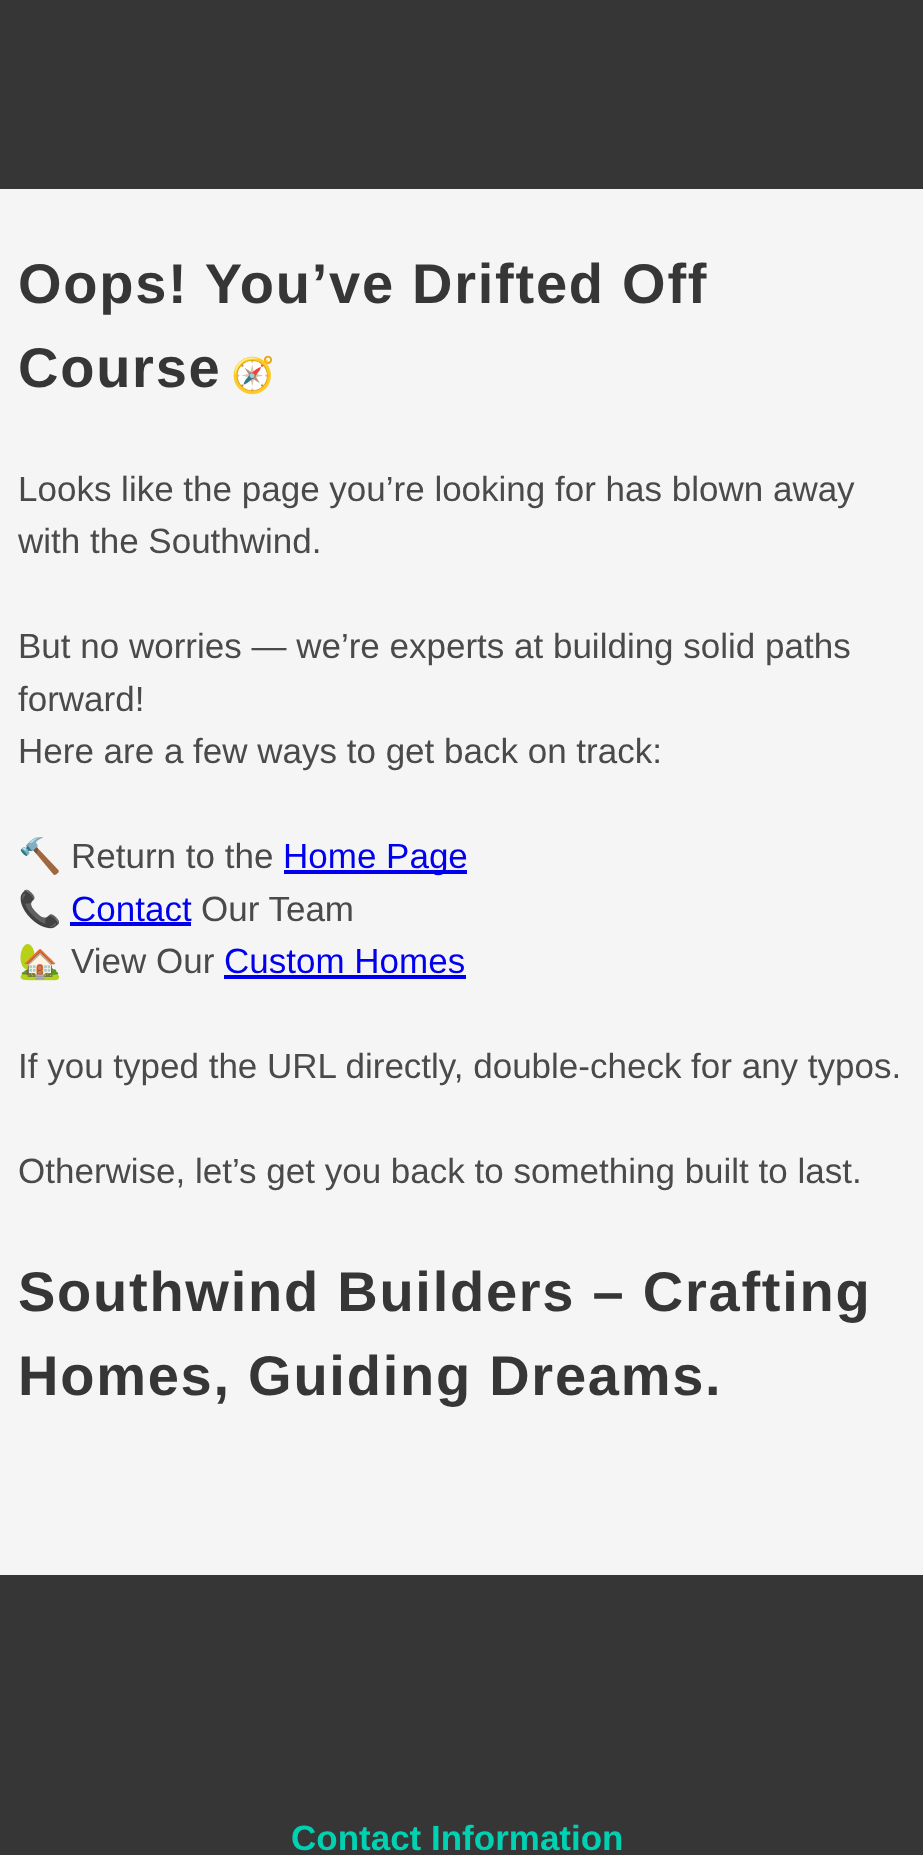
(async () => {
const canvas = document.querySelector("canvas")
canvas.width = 923
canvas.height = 1855
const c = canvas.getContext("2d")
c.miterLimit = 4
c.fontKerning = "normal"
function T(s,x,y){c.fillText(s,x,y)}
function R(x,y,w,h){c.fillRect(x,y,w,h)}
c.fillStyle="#f5f5f5"
R(0,0,923,1855)
c.fillStyle="#363636"
R(0,0,923,189)
c.letterSpacing="1.75px"
c.font="bold 56px Liberation Sans"
T("Oops! You’ve Drifted Off",18,303)
T("Course",18,387)
c.letterSpacing="0px"
c.font="35px Noto Color Emoji"
c.fillStyle="#4a4a4a"
T("🧭",231,387)
c.font="35px Liberation Sans"
T("Looks like the page you’re looking for has blown away",18,501)
T("with the Southwind.",18,553)
T("But no worries — we’re experts at building solid paths",18,658)
T("forward!",18,711)
T("Here are a few ways to get back on track:",18,763)
c.font="35px Noto Color Emoji"
T("🔨",18,868)
c.font="35px Liberation Sans"
T("Return to the",71,868)
c.fillStyle="#00e"
R(284,870,183,4)
T("Home Page",283,868)
c.font="35px Noto Color Emoji"
c.fillStyle="#4a4a4a"
T("📞",18,921)
c.font="35px Liberation Sans"
c.fillStyle="#00e"
T("Contact",71,921)
R(70,922,121,4)
c.fillStyle="#4a4a4a"
T("Our Team",201,921)
c.font="35px Noto Color Emoji"
T("🏡",18,973)
c.font="35px Liberation Sans"
T("View Our",71,973)
c.fillStyle="#00e"
T("Custom Homes",224,973)
R(224,975,242,4)
c.fillStyle="#4a4a4a"
T("If you typed the URL directly, double-check for any typos.",18,1078)
T("Otherwise, let’s get you back to something built to last.",18,1183)
c.letterSpacing="1.75px"
c.font="bold 56px Liberation Sans"
c.fillStyle="#363636"
T("Southwind Builders – Crafting",18,1311)
T("Homes, Guiding Dreams.",18,1395)
R(0,1575,923,280)
c.letterSpacing="0px"
c.font="bold 35px Liberation Sans"
c.fillStyle="#00d1b2"
T("Contact Information",291,1850)
})()
